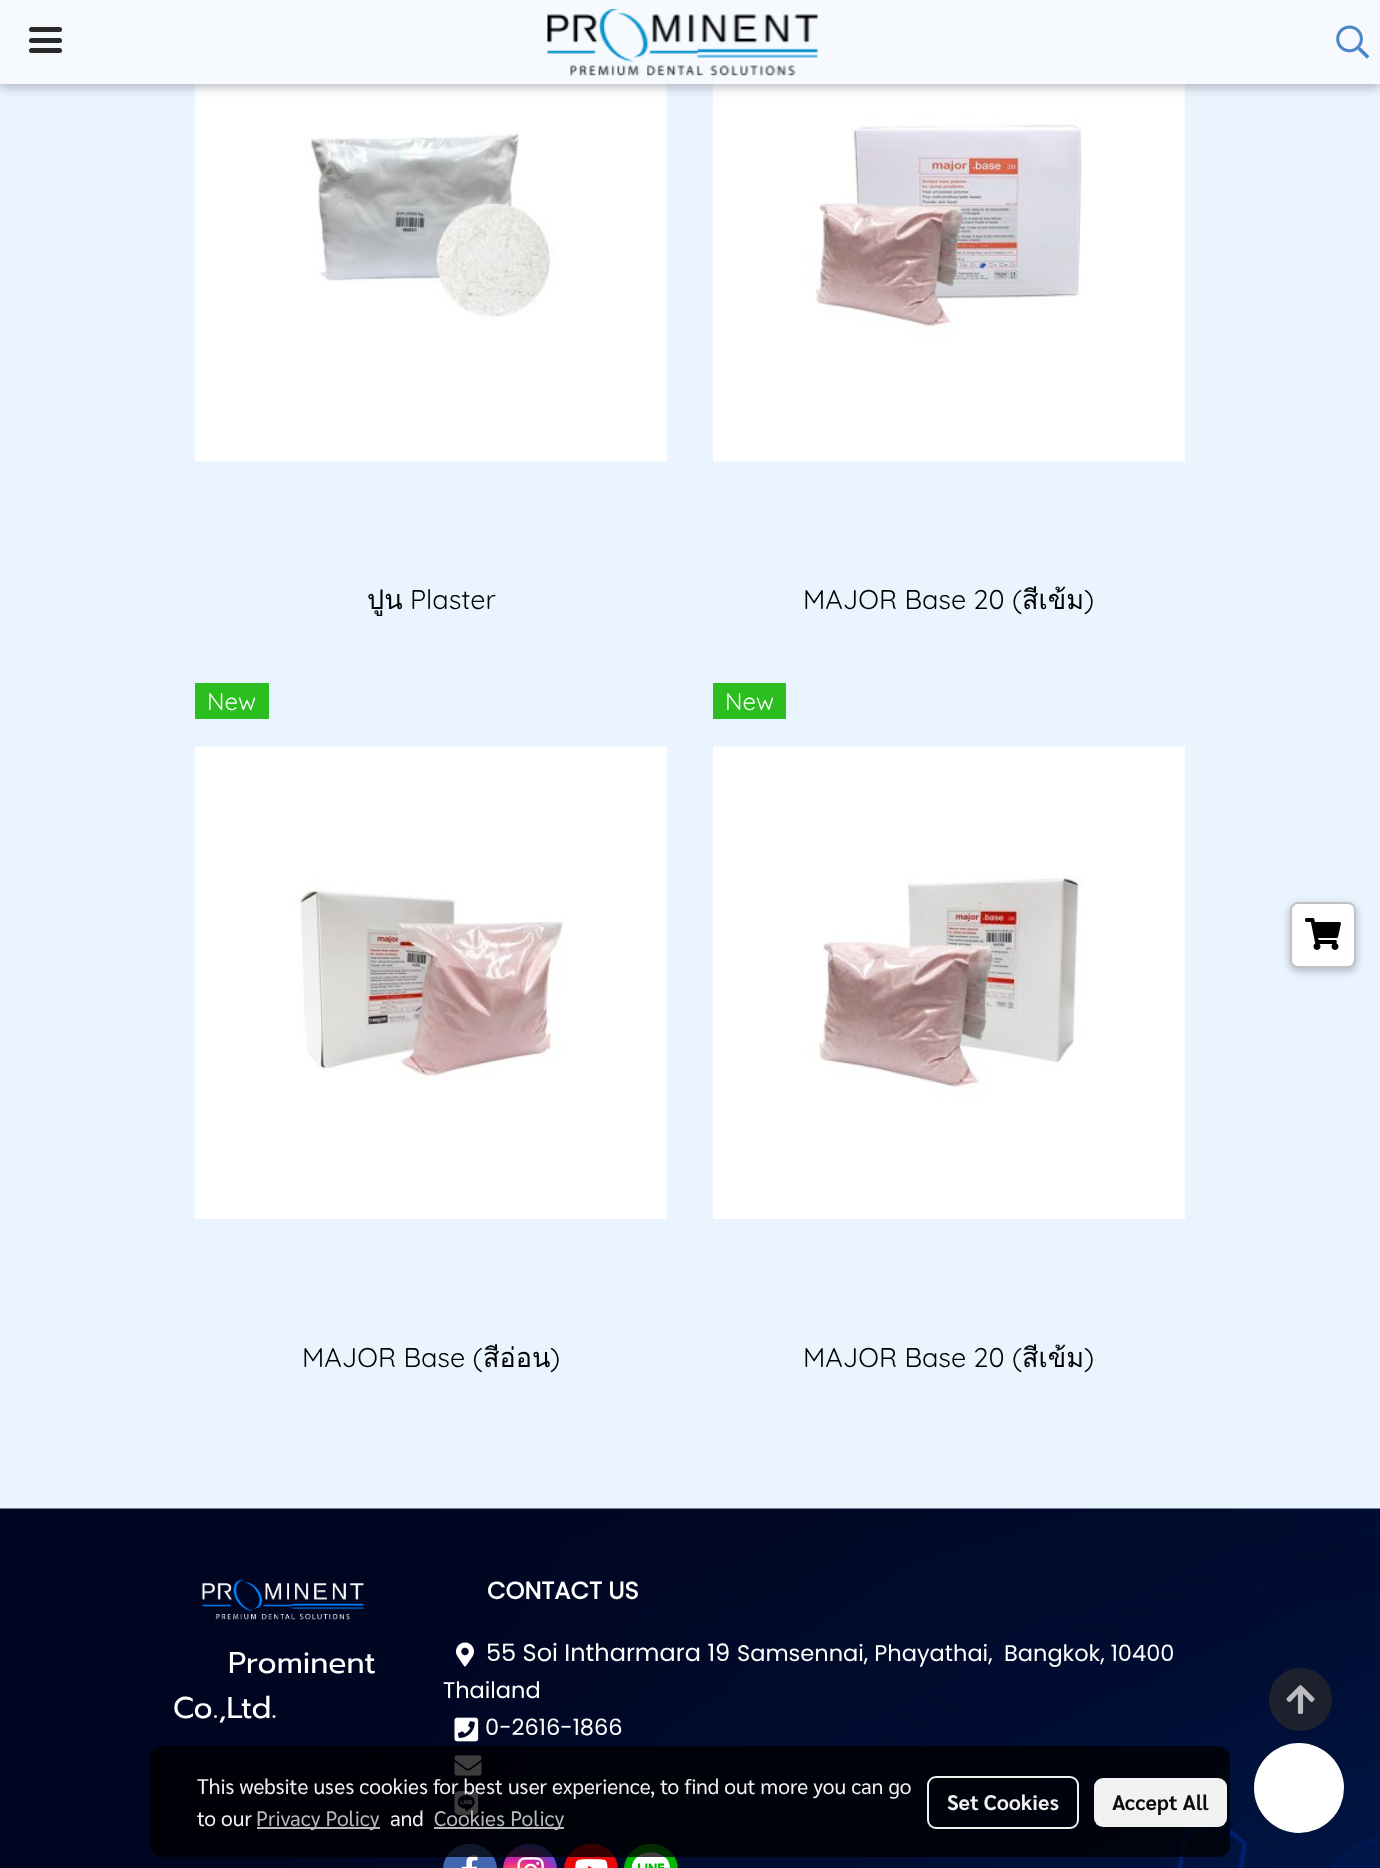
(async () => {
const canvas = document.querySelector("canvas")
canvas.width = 1380
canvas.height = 1868
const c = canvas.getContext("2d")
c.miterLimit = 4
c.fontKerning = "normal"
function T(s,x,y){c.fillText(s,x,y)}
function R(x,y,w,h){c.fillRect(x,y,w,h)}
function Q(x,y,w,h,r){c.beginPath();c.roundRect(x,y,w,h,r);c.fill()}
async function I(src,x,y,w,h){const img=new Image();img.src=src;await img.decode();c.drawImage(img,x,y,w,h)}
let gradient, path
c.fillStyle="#eaf4ff"
R(0,0,1380,1868)
await I("3.png",195,84,472,378)
await I("4.png",713,84,472,378)
c.fillStyle="#0000001f"
c.filter="blur(7.5px)"
c.beginPath()
c.rect(0,3,1380,84)
c.fill()
c.filter="none"
c.fillStyle="#00000029"
c.filter="blur(4px)"
c.beginPath()
c.rect(0,3,1380,84)
c.fill()
c.filter="none"
c.fillStyle="#f6faff"
R(0,0,1380,84)
c.fillStyle="#2a2a2a"
Q(29,38,33,5,2.5)
Q(29,27,33,5,2.5)
Q(29,48,33,5,2.5)
await I("1.png",547,9,271,67)
await I("2.png",1336,25,34,34)
c.font="27px Loma"
c.fillStyle="#000"
T("ปูน",367,609)
c.font="300 27px Quicksand"
T("Plaster",410,609)
T("MAJOR Base 20 (",803,609)
c.font="27px Loma"
T("สีเข้ม",1022,609)
c.font="300 27px Quicksand"
T(")",1084,609)
c.fillStyle="#2bbe1f"
R(195,683,74,36)
c.font="300 24px Quicksand"
c.fillStyle="#fff"
T("New",207,710)
await I("5.png",195,746,472,473)
c.font="300 27px Quicksand"
c.fillStyle="#000"
T("MAJOR Base (",302,1367)
c.font="27px Loma"
T("สีอ่อน",483,1367)
c.font="300 27px Quicksand"
T(")",550,1367)
c.fillStyle="#2bbe1f"
R(713,683,73,36)
c.font="300 24px Quicksand"
c.fillStyle="#fff"
T("New",725,710)
await I("6.png",713,746,472,473)
c.font="300 27px Quicksand"
c.fillStyle="#000"
T("MAJOR Base 20 (",803,1367)
c.font="27px Loma"
T("สีเข้ม",1022,1367)
c.font="300 27px Quicksand"
T(")",1084,1367)
c.fillStyle="#00000042"
c.filter="blur(4px)"
c.beginPath()
c.roundRect(1290,905,66,66,8)
c.fill()
c.filter="none"
c.fillStyle="#fff"
c.beginPath()
c.roundRect(1291,903,64,64,7)
c.fill()
c.strokeStyle="#c2c2c2"
c.lineWidth=2
c.stroke()
await I("7.png",1305,918,36,32)
await I("8.png",0,1508,1380,360)
await I("9.png",201,1579,163,41)
c.font="30px Prompt"
T("Prominent",228,1673)
T("Co.,Ltd.",173,1718)
c.font="bold 24px Poppins"
T("CONTACT US",487,1599)
await I("10.png",456,1642,18,25)
c.font="24px Poppins"
T("55 Soi Intharmara 19",486,1661)
c.font="22.5px Poppins"
T("Samsennai, Phayathai,",737,1661)
T("Bangkok, 10400",1004,1661)
T("Thailand",443,1698)
await I("11.png",454,1717,25,25)
T("0-2616-1866",485,1735)
await I("12.png",454,1755,28,21)
await I("13.png",454,1791,25,24)
c.fillStyle="#4267b2"
Q(443,1844,54,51,27)
await I("14.png",461,1855,17,13)
gradient = c.createRadialGradient(519,1901,0,519,1901,69)
gradient.addColorStop(0,"#fdf497")
gradient.addColorStop(.05,"#fdf497")
gradient.addColorStop(.45,"#fd5949")
gradient.addColorStop(.6,"#d6249f")
gradient.addColorStop(.9,"#285aeb")
c.fillStyle = gradient
Q(503,1844,54,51,27)
await I("15.png",517,1857,27,11)
c.fillStyle="#eb0808"
Q(564,1844,54,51,27)
await I("16.png",575,1859,33,9)
c.fillStyle="#00b800"
Q(624,1844,54,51,27)
await I("17.png",631,1843,39,25)
c.fillStyle="#2b2a2ab3"
path = new Path2D("M1300 1668c-17 0-31 14-31 32c0 17 14 31 31 31c18 0 32-14 32-31c0-18-14-32-32-32z")
c.fill(path)
await I("18.png",1286,1685,29,29)
c.fillStyle="#000000c2"
Q(150,1746,1080,111,12)
c.font="21px Sarabun"
c.fillStyle="#f2f2f3"
T("This website uses cookies for best user experience, to find out more you can go",197,1794)
T("to our",197,1826)
c.fillStyle="#b8b8b9"
R(257,1827,123,2)
c.fillStyle="#b8b9b9"
T("Privacy Policy",256,1826)
c.fillStyle="#f2f2f3"
T("and",390,1826)
c.fillStyle="#b8b8b9"
R(434,1827,130,2)
c.fillStyle="#b8b9b9"
T("Cookies Policy",434,1826)
c.beginPath()
c.roundRect(928,1777,150,51,8)
c.strokeStyle="#f2f2f3"
c.stroke()
c.font="bold 21px Sarabun"
c.fillStyle="#f2f2f3"
T("Set Cookies",947,1810)
c.fillStyle="#fffffff2"
Q(1094,1778,133,49,9)
c.fillStyle="#0c0c0c"
T("Accept All",1112,1810)
c.fillStyle="#fff"
c.beginPath()
c.arc(1299,1788,45,0,7)
c.fill()
})()
